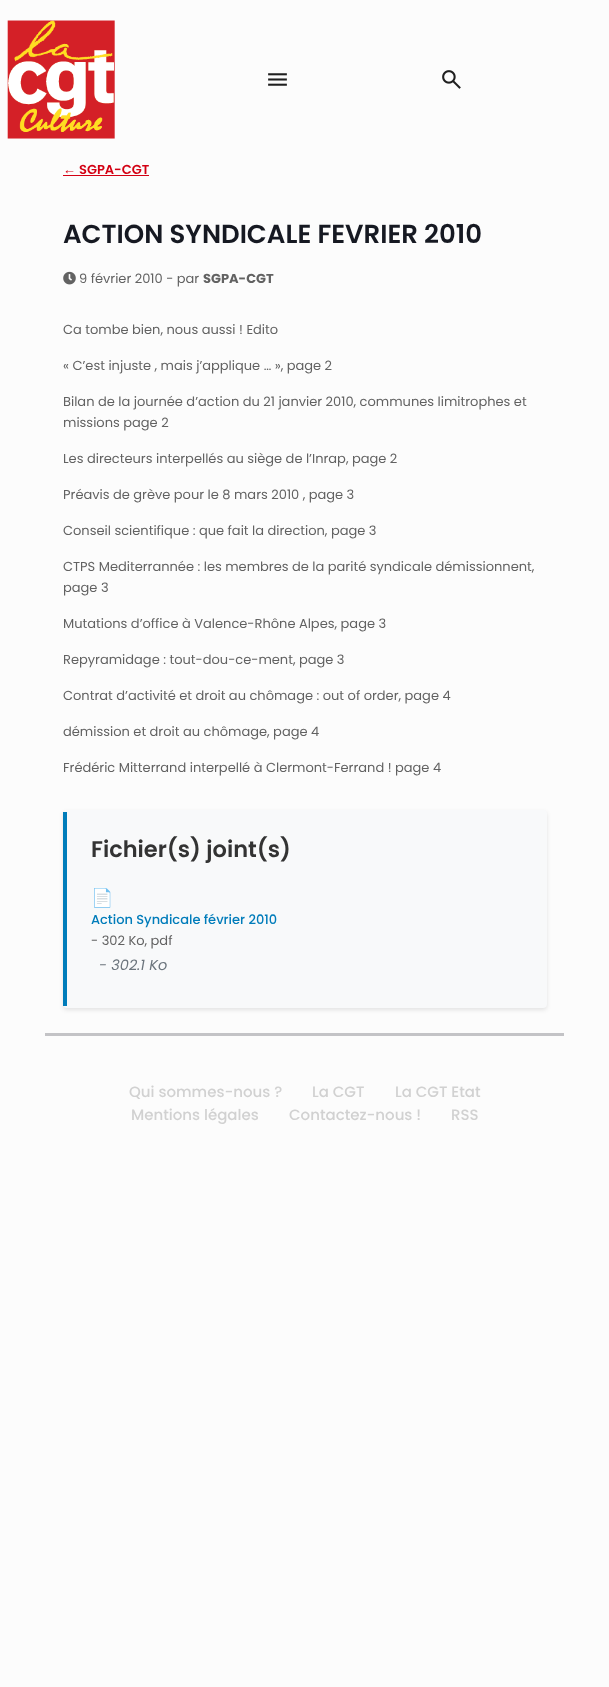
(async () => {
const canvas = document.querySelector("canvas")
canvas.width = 609
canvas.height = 1687
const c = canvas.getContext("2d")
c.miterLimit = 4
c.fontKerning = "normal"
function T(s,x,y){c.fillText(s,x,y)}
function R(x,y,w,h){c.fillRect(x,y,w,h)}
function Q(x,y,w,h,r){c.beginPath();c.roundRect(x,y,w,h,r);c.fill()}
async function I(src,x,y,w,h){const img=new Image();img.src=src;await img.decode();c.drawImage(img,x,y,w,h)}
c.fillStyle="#fcfcfc"
R(0,0,609,1687)
await I("1.png",7,20,108,119)
await I("2.png",268,73,19,13)
await I("3.png",442,70,19,19)
c.font="bold 13px Liberation Serif"
c.fillStyle="#d30013"
T("←",63,174)
R(63,175,86,1)
c.font="600 13px Poppins"
T("SGPA-CGT",79,174)
c.font="600 26px Poppins"
c.fillStyle="#161922"
T("ACTION SYNDICALE FEVRIER 2010",63,243)
await I("4.png",63,271,13,14)
c.font="13px Poppins"
c.fillStyle="#626262"
T("9 février 2010 - par",79,283)
c.font="bold 13px Poppins"
T("SGPA-CGT",203,283)
c.font="13px Poppins"
T("Ca tombe bien, nous aussi ! Edito",63,334)
T("« C’est injuste , mais j’applique … », page 2",63,370)
T("Bilan de la journée d’action du 21 janvier 2010, communes limitrophes et",63,406)
T("missions page 2",63,427)
T("Les directeurs interpellés au siège de l’Inrap, page 2",63,463)
T("Préavis de grève pour le 8 mars 2010 , page 3",63,499)
T("Conseil scientifique : que fait la direction, page 3",63,535)
T("CTPS Mediterrannée : les membres de la parité syndicale démissionnent,",63,571)
T("page 3",63,592)
T("Mutations d’office à Valence-Rhône Alpes, page 3",63,628)
T("Repyramidage : tout-dou-ce-ment, page 3",63,664)
T("Contrat d’activité et droit au chômage : out of order, page 4",63,700)
T("démission et droit au chômage, page 4",63,736)
T("Frédéric Mitterrand interpellé à Clermont-Ferrand ! page 4",63,772)
c.fillStyle="#0000001a"
c.filter="blur(2px)"
c.beginPath()
c.roundRect(63,812,484,198,4)
c.fill()
c.filter="none"
c.fillStyle="#f8f9fa"
Q(63,810,484,198,4)
c.fillStyle="#007cba"
R(63,812,4,194)
c.font="600 22.5px Poppins"
c.fillStyle="#333"
T("Fichier(s) joint(s)",91,857)
c.font="18px Noto Color Emoji"
c.fillStyle="#626262"
T("📄",91,904)
c.font="500 13px Poppins"
c.fillStyle="#007cba"
T("Action Syndicale février 2010",91,924)
c.font="13px Poppins"
c.fillStyle="#626262"
T("- 302 Ko, pdf",91,945)
c.font="italic 14.5px Poppins"
c.fillStyle="#6c757d"
T("- 302.1 Ko",99,970)
c.fillStyle="#c3c3c6"
R(45,1033,519,3)
c.font="500 15px Poppins"
c.fillStyle="#d1d1d1"
T("Qui sommes-nous ?",129,1097)
T("La CGT",312,1097)
T("La CGT Etat",395,1097)
T("Mentions légales",131,1120)
T("Contactez-nous !",289,1120)
T("RSS",451,1120)
})()
